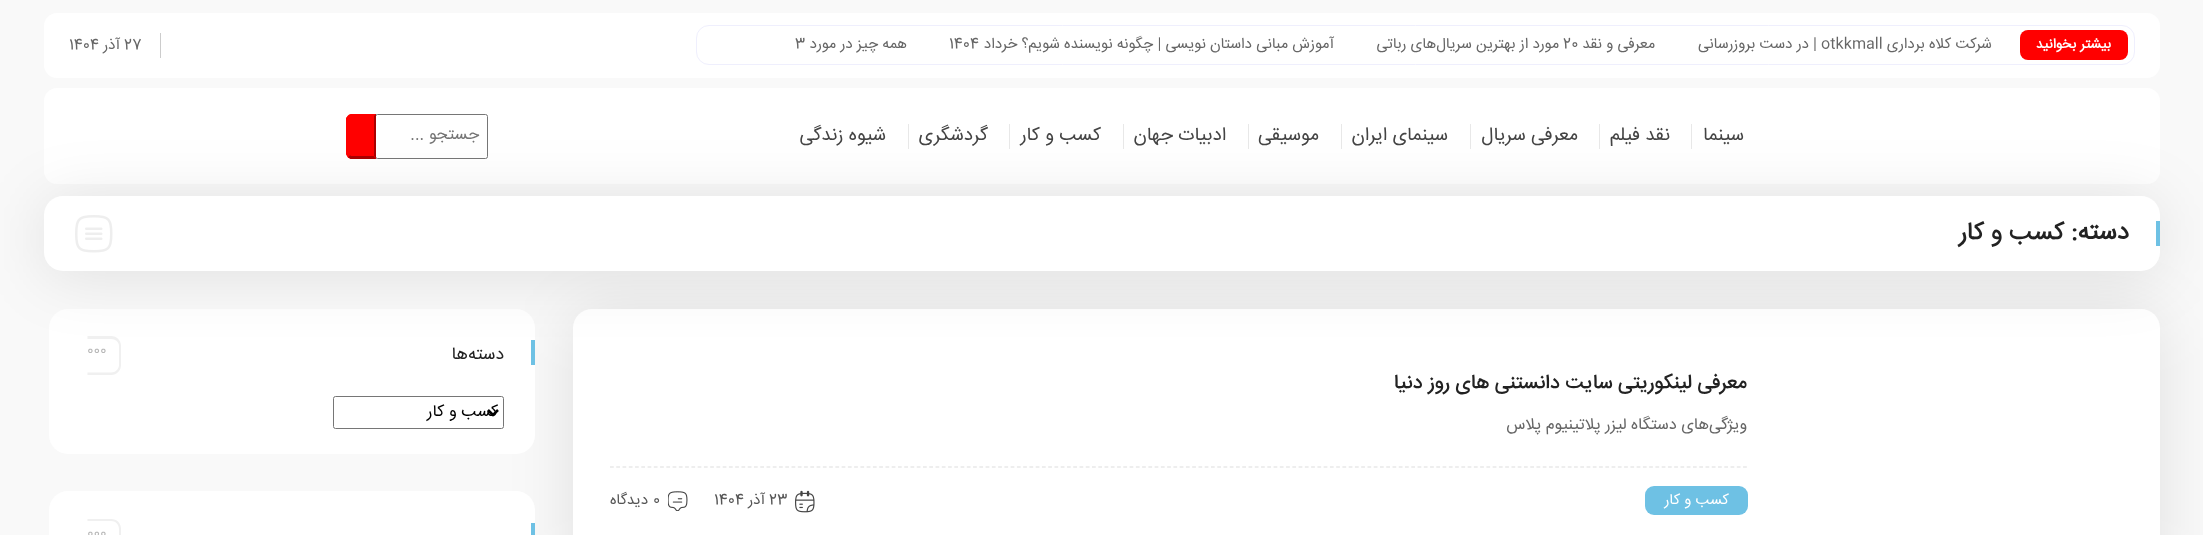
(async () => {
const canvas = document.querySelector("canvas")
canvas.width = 2203
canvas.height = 535
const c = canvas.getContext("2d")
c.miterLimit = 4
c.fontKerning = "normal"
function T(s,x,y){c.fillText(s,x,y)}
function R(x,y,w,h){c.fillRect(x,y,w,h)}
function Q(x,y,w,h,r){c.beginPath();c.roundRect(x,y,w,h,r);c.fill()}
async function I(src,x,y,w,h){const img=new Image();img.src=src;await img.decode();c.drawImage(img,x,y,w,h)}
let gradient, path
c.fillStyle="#f9f9f9"
R(0,0,2203,535)
c.fillStyle="#fff"
Q(44,13,2116,65,13)
c.beginPath()
c.roundRect(696.5,25.5,1438,39,12.5)
c.strokeStyle="#efeffd"
c.stroke()
c.fillStyle="#f00"
Q(2020,30,108,30,8)
c.direction="rtl"
c.font="bold 13.75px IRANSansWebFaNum"
c.fillStyle="#fff"
T("بیشتر بخوانید",2111,48)
c.font="15px 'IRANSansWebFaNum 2'"
c.fillStyle="#666"
T("شرکت کلاه برداری",1992,48)
gradient = c.createLinearGradient(1989,45,2014,45)
gradient.addColorStop(0,"#ffffff00")
gradient.addColorStop(.7,"#fff")
c.fillStyle = gradient
R(1989,42,3,6)
c.direction="ltr"
c.fillStyle="#666"
T("otkkmall",1821,48)
c.direction="rtl"
T("| در دست بروزرسانی",1817,48)
T("معرفی و نقد",1655,48)
c.direction="ltr"
T("20",1563,48)
c.direction="rtl"
T("مورد از بهترین سریال‌های رباتی",1559,48)
T("آموزش مبانی داستان نویسی | چگونه نویسنده شویم؟ خرداد",1334,48)
c.direction="ltr"
T("1404",949,48)
c.direction="rtl"
T("همه چیز در مورد",907,48)
c.direction="ltr"
T("3",795,48)
c.fillStyle="#ccc"
R(160,33,1,25)
c.fillStyle="#666"
T("27",124,49)
c.direction="rtl"
T("آذر",120,49)
c.direction="ltr"
T("1404",69,49)
c.fillStyle="#fff"
Q(44,88,2116,96,13)
c.direction="rtl"
c.font="18.75px 'IRANSansWebFaNum 2'"
c.fillStyle="#444"
T("سینما",1744,140)
c.fillStyle="#e8e8e8"
R(1691,124,1,25)
c.fillStyle="#444"
T("نقد فیلم",1670,140)
c.fillStyle="#e8e8e8"
R(1599,124,1,25)
c.fillStyle="#444"
T("معرفی سریال",1578,140)
c.fillStyle="#e8e8e8"
R(1470,124,1,25)
c.fillStyle="#444"
T("سینمای ایران",1448,140)
c.fillStyle="#e8e8e8"
R(1341,124,1,25)
c.fillStyle="#444"
T("موسیقی",1319,140)
c.fillStyle="#e8e8e8"
R(1248,124,1,25)
c.fillStyle="#444"
T("ادبیات جهان",1226,140)
c.fillStyle="#e8e8e8"
R(1123,124,1,25)
c.fillStyle="#444"
T("کسب و کار",1101,140)
c.fillStyle="#e8e8e8"
R(1009,124,1,25)
c.fillStyle="#444"
T("گردشگری",988,140)
c.fillStyle="#e8e8e8"
R(908,124,1,25)
c.fillStyle="#444"
T("شیوه زندگی",886,140)
c.beginPath()
c.roundRect(375.5,114.5,112,44,2)
c.strokeStyle="#767676"
c.stroke()
c.font="16.5px 'IRANSansWebFaNum 2'"
c.fillStyle="#757575"
T("جستجو ...",479,139)
c.fillStyle="#f00"
c.beginPath()
c.roundRect(346,114,30,45,[6,0,0,6])
c.fill()
path = new Path2D("M352 114c-1.5 0-3 .5-4 1.5l2 1.5c0-.5 1-1 2-1h22l2-2z")
c.fill(path)
c.fillStyle="#a00"
path = new Path2D("M376 158v-44l-2 2v40z")
c.fill(path)
path = new Path2D("M350.5 159l-2.5-2l2-2c.5 1 1 1 2 1h21.5l2.5 3z")
c.fill(path)
c.fillStyle="#f00"
path = new Path2D("M346 118l2-2l2 1c-2 3-2 37 0 38l-2 2l-2-3z")
c.fill(path)
c.fillStyle="#0000001a"
c.filter="blur(32px)"
c.beginPath()
c.roundRect(573,314,1587,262,19)
c.fill()
c.filter="none"
c.fillStyle="#fff"
Q(573,309,1587,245,19)
Q(49,309,486,145,19)
c.fillStyle="#0000001a"
c.filter="blur(32px)"
c.beginPath()
c.roundRect(44,201,2116,75,19)
c.fill()
c.filter="none"
c.fillStyle="#fff"
Q(44,196,2116,75,19)
c.fillStyle="#6ec1e4"
R(2156,221,4,25)
c.font="bold 25px IRANSansWebFaNum"
c.fillStyle="#222"
T("دسته:",2129,239)
c.font="500 25px IRANSansWebFaNum"
T("کسب و کار",2064,239)
await I("1.png",75,215,38,38)
c.font="500 20px IRANSansWebFaNum"
T("معرفی لینکوریتی سایت دانستنی های روز دنیا",1747,388)
c.font="16.25px IRANSansWebFaNum"
c.fillStyle="#666"
T("ویژگی‌های دستگاه لیزر پلاتینیوم پلاس",1747,429)
path = new Path2D("M610 467h1137.5")
c.strokeStyle="#ddd"
c.lineWidth=1.2
c.setLineDash([3.75,2.51])
c.stroke(path)
c.fillStyle="#6ec1e4"
Q(1645,486,103,29,9)
c.font="15px 'IRANSansWebFaNum 2'"
c.fillStyle="#fff"
T("کسب و کار",1729,504)
await I("2.png",795,490,20,23)
c.direction="ltr"
c.fillStyle="#555"
T("23",769,504)
c.direction="rtl"
T("آذر",765,504)
c.direction="ltr"
T("1404",714,504)
await I("3.png",668,491,20,20)
T("0",653,504)
c.direction="rtl"
T("دیدگاه",648,504)
c.fillStyle="#6ec1e4"
R(531,340,4,25)
c.font="17.5px IRANSansWebFaNum"
c.fillStyle="#222"
T("دسته‌ها",504,359)
c.fillStyle="#f0f0f0"
path = new Path2D("M87.5 336h23.5c6 0 10 4.5 10 10v19c0 5.5-4 10-10 10h-23.5zm0 3h23.5c4.5 0 8 3 8 7v19c0 4-3.5 7.5-8 7.5h-23.5z")
c.fill(path,"evenodd")
c.direction="ltr"
c.font="13.75px IRANSansWebFaNum"
c.fillStyle="#b7b7b7"
T("000",87,354)
c.beginPath()
c.roundRect(333.5,396.5,170,32,2)
c.strokeStyle="#767676"
c.lineWidth=1
c.setLineDash([])
c.stroke()
path = new Path2D("M488 410l5 5l5-5")
c.strokeStyle="#000"
c.lineWidth=2.5
c.stroke(path)
c.direction="rtl"
c.font="16.5px 'IRANSansWebFaNum 2'"
c.fillStyle="#000"
T("کسب و کار",498,416)
c.fillStyle="#fff"
Q(49,491,486,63,19)
c.fillStyle="#6ec1e4"
R(531,523,4,12)
c.fillStyle="#f0f0f0"
path = new Path2D("M87.5 519h23.5c6 0 10 4 10 10v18.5c0 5.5-4 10-10 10h-23.5zm0 2h23.5c4.5 0 8 3.5 8 8v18.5c0 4-3.5 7.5-8 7.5h-23.5z")
c.fill(path,"evenodd")
c.direction="ltr"
c.font="13.75px IRANSansWebFaNum"
c.fillStyle="#b7b7b7"
T("000",87,537)
})()
